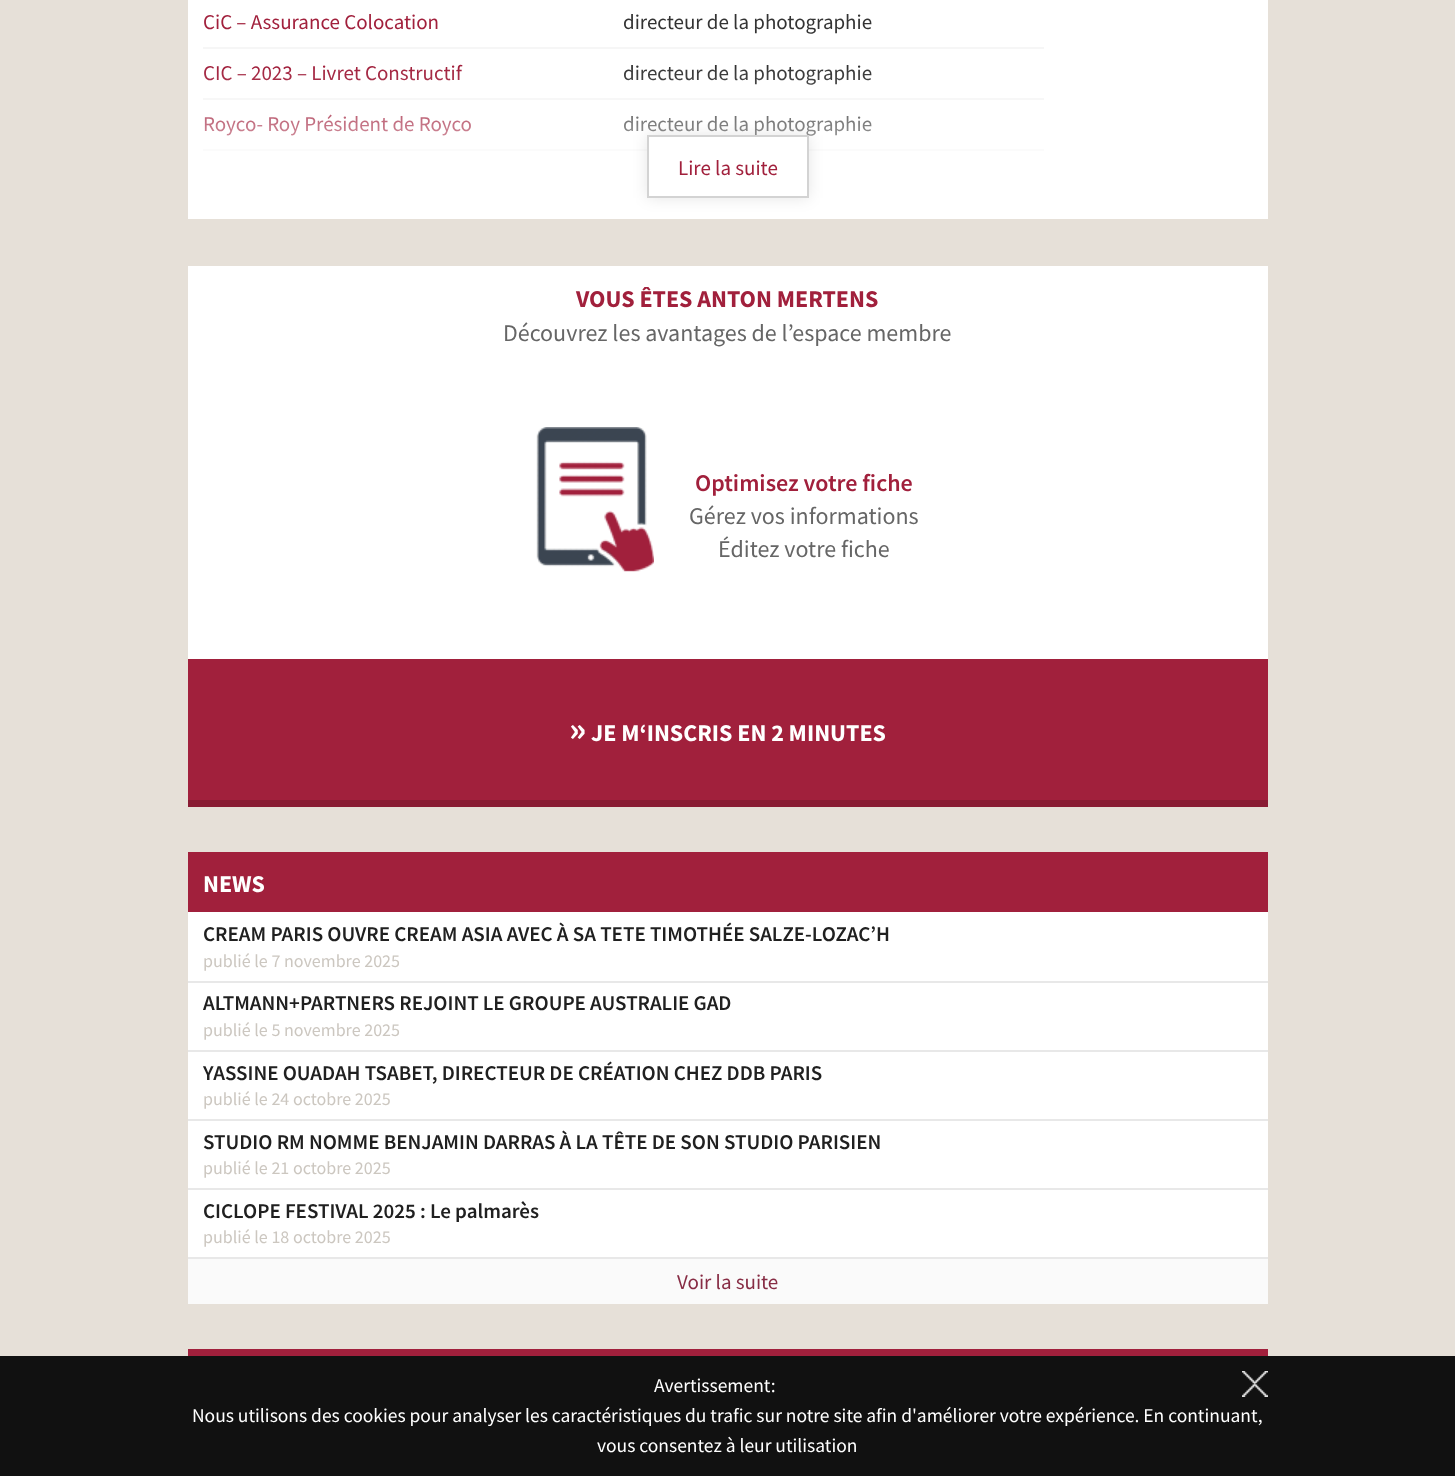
(async () => {
const canvas = document.querySelector("canvas")
canvas.width = 1455
canvas.height = 1476
const c = canvas.getContext("2d")
c.miterLimit = 4
c.fontKerning = "normal"
function T(s,x,y){c.fillText(s,x,y)}
function R(x,y,w,h){c.fillRect(x,y,w,h)}
async function I(src,x,y,w,h){const img=new Image();img.src=src;await img.decode();c.drawImage(img,x,y,w,h)}
c.fillStyle="#e6e0d8"
R(0,0,1455,1476)
c.fillStyle="#fff"
R(188,0,1080,219)
c.font="21px Source Sans Pro"
c.fillStyle="#a1203c"
T("CiC – Assurance Colocation",203,29)
c.fillStyle="#333"
T("directeur de la photographie",623,29)
c.fillStyle="#a1203c"
T("CIC – 2023 – Livret Constructif",203,80)
c.fillStyle="#f6f6f6"
R(203,47,841,2)
c.fillStyle="#333"
T("directeur de la photographie",623,80)
c.fillStyle="#a1203c"
T("Royco- Roy Président de Royco",203,131)
c.fillStyle="#f6f6f6"
R(203,98,841,2)
c.fillStyle="#333"
T("directeur de la photographie",623,131)
c.fillStyle="#f6f6f6"
R(203,149,841,2)
await I("1.png",203,69,841,150)
c.fillStyle="#0000001a"
c.filter="blur(7.5px)"
c.beginPath()
c.rect(647,135,162,63)
c.fill()
c.filter="none"
c.fillStyle="#fff"
c.beginPath()
c.rect(648,136,160,61)
c.fill()
c.strokeStyle="#d3d3d3"
c.lineWidth=2
c.stroke()
c.fillStyle="#a1203c"
T("Lire la suite",678,175)
c.fillStyle="#fff"
R(188,266,1080,393)
c.font="bold 24px Source Sans Pro"
c.fillStyle="#a1203c"
T("VOUS ÊTES ANTON MERTENS",576,307)
c.font="24px Source Sans Pro"
c.fillStyle="#666"
T("Découvrez les avantages de l’espace membre",503,341)
await I("2.png",536,427,118,145)
c.font="600 24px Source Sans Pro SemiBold"
c.fillStyle="#a1203c"
T("Optimisez votre fiche",695,491)
c.font="24px Source Sans Pro"
c.fillStyle="#666"
T("Gérez vos informations",689,524)
T("Éditez votre fiche",718,557)
c.fillStyle="#a1203c"
R(188,659,1080,141)
c.fillStyle="#891b33"
R(188,800,1080,7)
c.font="bold 36px Source Sans Pro"
c.fillStyle="#fff"
T("»",569,741)
c.font="bold 24px Source Sans Pro"
T("JE M‘INSCRIS EN 2 MINUTES",591,741)
R(188,912,1080,345)
c.fillStyle="#a1203c"
R(188,852,1080,60)
c.fillStyle="#fff"
T("NEWS",203,892)
c.fillStyle="#e8e8e8"
R(188,981,1080,2)
c.font="600 21px Source Sans Pro SemiBold"
c.fillStyle="#202020"
T("CREAM PARIS OUVRE CREAM ASIA AVEC À SA TETE TIMOTHÉE SALZE-LOZAC’H",203,941)
c.font="18px Source Sans Pro"
c.fillStyle="#ccc7c0"
T("publié le 7 novembre 2025",203,967)
c.fillStyle="#e8e8e8"
R(188,1050,1080,2)
c.font="600 21px Source Sans Pro SemiBold"
c.fillStyle="#202020"
T("ALTMANN+PARTNERS REJOINT LE GROUPE AUSTRALIE GAD",203,1010)
c.font="18px Source Sans Pro"
c.fillStyle="#ccc7c0"
T("publié le 5 novembre 2025",203,1036)
c.fillStyle="#e8e8e8"
R(188,1119,1080,2)
c.font="600 21px Source Sans Pro SemiBold"
c.fillStyle="#202020"
T("YASSINE OUADAH TSABET, DIRECTEUR DE CRÉATION CHEZ DDB PARIS",203,1080)
c.font="18px Source Sans Pro"
c.fillStyle="#ccc7c0"
T("publié le 24 octobre 2025",203,1105)
c.fillStyle="#e8e8e8"
R(188,1188,1080,2)
c.font="600 21px Source Sans Pro SemiBold"
c.fillStyle="#202020"
T("STUDIO RM NOMME BENJAMIN DARRAS À LA TÊTE DE SON STUDIO PARISIEN",203,1149)
c.font="18px Source Sans Pro"
c.fillStyle="#ccc7c0"
T("publié le 21 octobre 2025",203,1174)
c.fillStyle="#e8e8e8"
R(188,1257,1080,2)
c.font="600 21px Source Sans Pro SemiBold"
c.fillStyle="#202020"
T("CICLOPE FESTIVAL 2025 : Le palmarès",203,1218)
c.font="18px Source Sans Pro"
c.fillStyle="#ccc7c0"
T("publié le 18 octobre 2025",203,1243)
c.fillStyle="#fafafa"
R(188,1259,1080,45)
c.font="21px Source Sans Pro"
c.fillStyle="#872c44"
T("Voir la suite",677,1289)
c.fillStyle="#a1203c"
R(188,1349,1080,7)
c.fillStyle="#111"
R(0,1356,1455,120)
c.font="19.5px Source Sans Pro"
c.fillStyle="#fff"
T("Avertissement:",654,1392)
await I("3.png",1242,1371,26,26)
T("Nous utilisons des cookies pour analyser les caractéristiques du trafic sur notre site afin d'améliorer votre expérience. En continuant,",192,1422)
T("vous consentez à leur utilisation",597,1452)
})()
